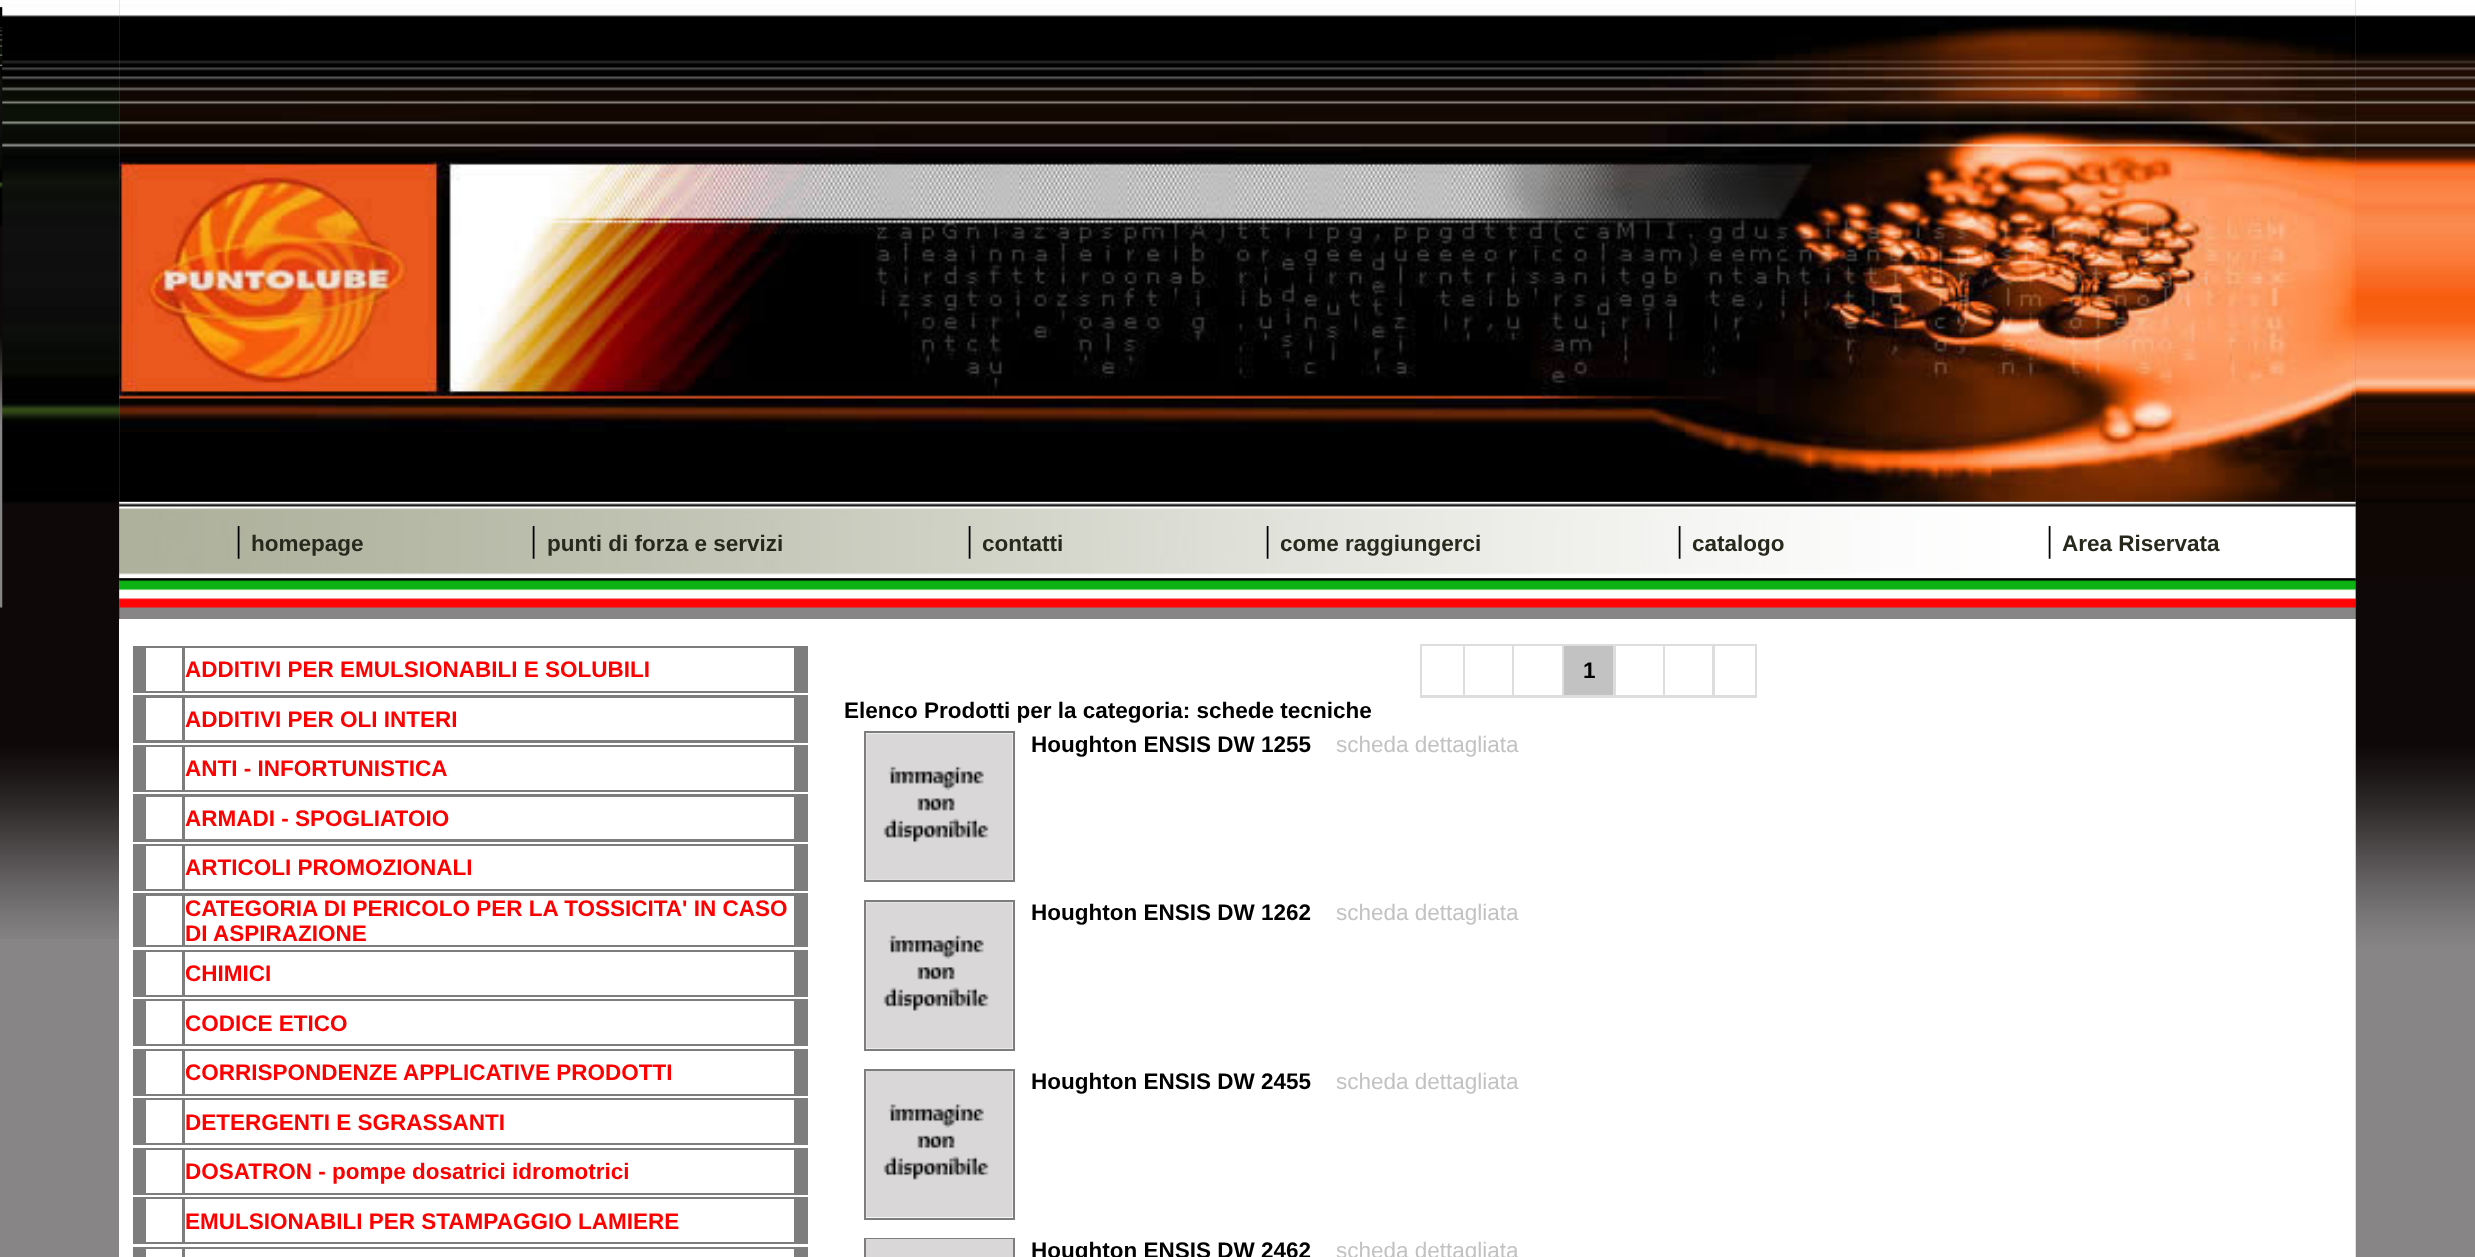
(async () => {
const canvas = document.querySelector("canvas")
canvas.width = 2475
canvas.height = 1257
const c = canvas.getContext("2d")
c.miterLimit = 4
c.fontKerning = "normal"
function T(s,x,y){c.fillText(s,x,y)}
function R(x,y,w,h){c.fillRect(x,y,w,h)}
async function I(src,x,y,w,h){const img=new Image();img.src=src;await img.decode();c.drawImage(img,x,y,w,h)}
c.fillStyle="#878586"
R(0,0,2475,1257)
await I("1.png",0,0,120,939)
await I("2.png",0,7,3,601)
await I("4.png",119,501,2237,78)
await I("5.png",119,578,2237,30)
c.fillStyle="#fff"
R(119,619,2237,638)
await I("9.png",2355,0,120,1257)
await I("3.png",119,0,2237,502)
c.font="36px Liberation Serif"
c.fillStyle="#000"
T("|",235,551)
c.font="bold 22.5px Liberation Sans"
c.fillStyle="#27291c"
T("homepage",251,551)
c.font="36px Liberation Serif"
c.fillStyle="#000"
T("|",530,551)
c.font="bold 22.5px Liberation Sans"
c.fillStyle="#27291c"
T("punti di forza e servizi",547,551)
c.font="36px Liberation Serif"
c.fillStyle="#000"
T("|",966,551)
c.font="bold 22.5px Liberation Sans"
c.fillStyle="#27291c"
T("contatti",982,551)
c.font="36px Liberation Serif"
c.fillStyle="#000"
T("|",1264,551)
c.font="bold 22.5px Liberation Sans"
c.fillStyle="#27291c"
T("come raggiungerci",1280,551)
c.font="36px Liberation Serif"
c.fillStyle="#000"
T("|",1676,551)
c.font="bold 22.5px Liberation Sans"
c.fillStyle="#27291c"
T("catalogo",1692,551)
c.font="36px Liberation Serif"
c.fillStyle="#000"
T("|",2046,551)
c.font="bold 22.5px Liberation Sans"
c.fillStyle="#27291c"
T("Area Riservata",2062,551)
c.fillStyle="#7d7d7d"
R(133,646,675,47)
c.fillStyle="#fff"
R(146,648,36,43)
R(185,648,609,43)
c.fillStyle="#f00"
T("ADDITIVI PER EMULSIONABILI E SOLUBILI",185,677)
c.fillStyle="#7d7d7d"
R(133,695,675,48)
c.fillStyle="#fff"
R(146,698,36,42)
R(185,698,609,42)
c.fillStyle="#f00"
T("ADDITIVI PER OLI INTERI",185,727)
c.fillStyle="#7d7d7d"
R(133,745,675,47)
c.fillStyle="#fff"
R(146,747,36,43)
R(185,747,609,43)
c.fillStyle="#f00"
T("ANTI - INFORTUNISTICA",185,776)
c.fillStyle="#7d7d7d"
R(133,794,675,48)
c.fillStyle="#fff"
R(146,797,36,42)
R(185,797,609,42)
c.fillStyle="#f00"
T("ARMADI - SPOGLIATOIO",185,826)
c.fillStyle="#7d7d7d"
R(133,844,675,47)
c.fillStyle="#fff"
R(146,846,36,43)
R(185,846,609,43)
c.fillStyle="#f00"
T("ARTICOLI PROMOZIONALI",185,875)
c.fillStyle="#7d7d7d"
R(133,893,675,54)
c.fillStyle="#fff"
R(146,896,36,49)
R(185,896,609,49)
c.fillStyle="#f00"
T("CATEGORIA DI PERICOLO PER LA TOSSICITA' IN CASO",185,916)
T("DI ASPIRAZIONE",185,941)
c.fillStyle="#7d7d7d"
R(133,950,675,47)
c.fillStyle="#fff"
R(146,952,36,43)
R(185,952,609,43)
c.fillStyle="#f00"
T("CHIMICI",185,981)
c.fillStyle="#7d7d7d"
R(133,999,675,47)
c.fillStyle="#fff"
R(146,1001,36,43)
R(185,1001,609,43)
c.fillStyle="#f00"
T("CODICE ETICO",185,1031)
c.fillStyle="#7d7d7d"
R(133,1049,675,47)
c.fillStyle="#fff"
R(146,1051,36,43)
R(185,1051,609,43)
c.fillStyle="#f00"
T("CORRISPONDENZE APPLICATIVE PRODOTTI",185,1080)
c.fillStyle="#7d7d7d"
R(133,1098,675,47)
c.fillStyle="#fff"
R(146,1100,36,43)
R(185,1100,609,43)
c.fillStyle="#f00"
T("DETERGENTI E SGRASSANTI",185,1130)
c.fillStyle="#7d7d7d"
R(133,1148,675,47)
c.fillStyle="#fff"
R(146,1150,36,43)
R(185,1150,609,43)
c.fillStyle="#f00"
T("DOSATRON - pompe dosatrici idromotrici",185,1179)
c.fillStyle="#7d7d7d"
R(133,1197,675,47)
c.fillStyle="#fff"
R(146,1199,36,43)
R(185,1199,609,43)
c.fillStyle="#f00"
T("EMULSIONABILI PER STAMPAGGIO LAMIERE",185,1229)
c.fillStyle="#7d7d7d"
R(133,1247,675,10)
c.fillStyle="#fff"
R(146,1249,36,8)
R(185,1249,609,8)
c.fillStyle="#ddd"
R(1420,644,337,54)
c.fillStyle="#fff"
R(1422,646,41,49)
R(1465,646,47,49)
R(1514,646,48,49)
c.fillStyle="#c2c2c2"
R(1564,646,49,49)
c.fillStyle="#000"
T("1",1583,678)
c.fillStyle="#fff"
R(1616,646,47,49)
R(1665,646,47,49)
R(1715,646,40,49)
c.fillStyle="#000"
T("Elenco Prodotti per la categoria: schede tecniche",844,718)
c.strokeStyle="#7d7d7d"
c.lineWidth=2
c.strokeRect(865,732,149,149)
await I("6.png",866,733,147,147)
T("Houghton ENSIS DW 1255",1031,752)
c.font="22.5px Liberation Sans"
c.fillStyle="#c2c2c2"
T("scheda dettagliata",1336,752)
c.strokeRect(865,901,149,149)
await I("7.png",866,902,147,147)
c.font="bold 22.5px Liberation Sans"
c.fillStyle="#000"
T("Houghton ENSIS DW 1262",1031,920)
c.font="22.5px Liberation Sans"
c.fillStyle="#c2c2c2"
T("scheda dettagliata",1336,920)
c.strokeRect(865,1070,149,149)
await I("8.png",866,1071,147,147)
c.font="bold 22.5px Liberation Sans"
c.fillStyle="#000"
T("Houghton ENSIS DW 2455",1031,1089)
c.font="22.5px Liberation Sans"
c.fillStyle="#c2c2c2"
T("scheda dettagliata",1336,1089)
c.strokeRect(865,1239,149,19)
c.fillStyle="#d9d7d7"
R(866,1239,147,18)
c.font="bold 22.5px Liberation Sans"
c.fillStyle="#000"
T("Houghton ENSIS DW 2462",1031,1258)
c.font="22.5px Liberation Sans"
c.fillStyle="#c2c2c2"
T("scheda dettagliata",1336,1258)
})()
